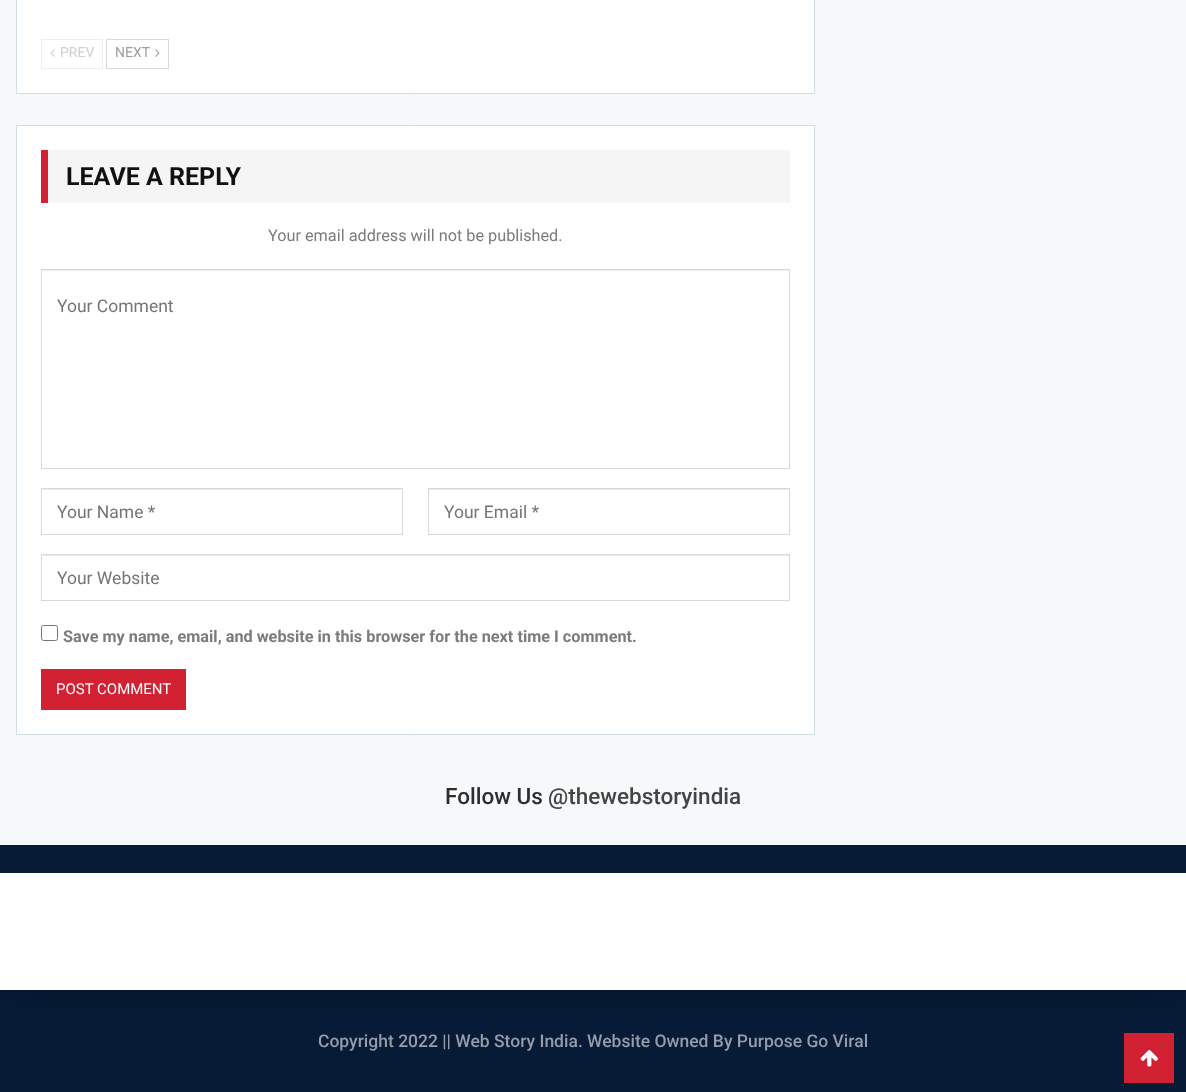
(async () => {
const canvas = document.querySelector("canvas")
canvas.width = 1186
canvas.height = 1092
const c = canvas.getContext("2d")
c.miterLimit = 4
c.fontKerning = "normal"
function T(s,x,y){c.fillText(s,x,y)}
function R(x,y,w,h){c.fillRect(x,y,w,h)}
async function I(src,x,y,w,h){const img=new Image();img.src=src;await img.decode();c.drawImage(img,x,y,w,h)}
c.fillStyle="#f6f8fa"
R(0,0,1186,1092)
c.fillStyle="#fff"
c.beginPath()
c.rect(16.5,-.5,798,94)
c.fill()
c.strokeStyle="#d2dce3"
c.stroke()
c.strokeStyle="#ececec"
c.strokeRect(41.5,39.5,61,29)
await I("1.png",50,49,5,8)
c.font="14px Roboto"
c.fillStyle="#cfcfcf"
T("PREV",60,57)
c.strokeStyle="#d8d8d8"
c.strokeRect(106.5,39.5,62,29)
c.fillStyle="#9e9e9e"
T("NEXT",115,57)
await I("2.png",155,49,5,8)
c.fillStyle="#fff"
c.beginPath()
c.rect(16.5,125.5,798,609)
c.fill()
c.strokeStyle="#d2dce3"
c.stroke()
c.fillStyle="#f5f5f5"
R(48,150,742,53)
c.fillStyle="#d12133"
R(41,150,7,53)
c.font="bold 25px Roboto"
c.fillStyle="#111"
T("LEAVE A REPLY",66,185)
c.font="16.25px Roboto"
c.fillStyle="#7b7b7b"
T("Your email address will not be published.",268,241)
c.fillStyle="#ececec"
R(43,270,746,1)
c.strokeStyle="#d8d8d8"
c.strokeRect(41.5,269.5,748,199)
c.font="17.5px Roboto"
c.fillStyle="#757575"
T("Your Comment",57,312)
c.fillStyle="#ececec"
R(43,489,358,1)
c.strokeRect(41.5,488.5,361,46)
c.fillStyle="#757575"
T("Your Name *",57,518)
c.fillStyle="#ececec"
R(429,489,360,1)
c.strokeRect(428.5,488.5,361,46)
c.fillStyle="#757575"
T("Your Email *",444,518)
c.fillStyle="#ececec"
R(43,555,746,1)
c.strokeRect(41.5,554.5,748,46)
c.fillStyle="#757575"
T("Your Website",57,584)
c.beginPath()
c.roundRect(41.5,625.5,16,15,2)
c.strokeStyle="#767676"
c.stroke()
c.font="bold 16.25px Roboto"
c.fillStyle="#7b7b7b"
T("Save my name, email, and website in this browser for the next time I comment.",63,642)
c.fillStyle="#d12133"
R(41,669,145,41)
c.font="15px Roboto"
c.fillStyle="#fff"
T("POST COMMENT",56,694)
c.font="500 22.5px Roboto"
c.fillStyle="#2d2d2d"
T("Follow Us",445,804)
c.fillStyle="#444"
T("@thewebstoryindia",548,804)
c.fillStyle="#071b37"
R(0,845,1186,247)
c.save()
c.beginPath()
c.rect(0,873,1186,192)
c.clip()
c.fillStyle="#00000070"
c.filter="blur(19px)"
c.beginPath()
c.rect(13,891,1161,93)
c.fill()
c.filter="none"
c.restore()
c.fillStyle="#fff"
R(0,873,1186,117)
c.font="500 17.5px Roboto"
c.fillStyle="#949da9"
T("Copyright 2022 || Web Story India. Website Owned By Purpose Go Viral",318,1047)
c.fillStyle="#d12133"
R(1124,1033,50,50)
await I("3.png",1140,1050,18,17)
})()
